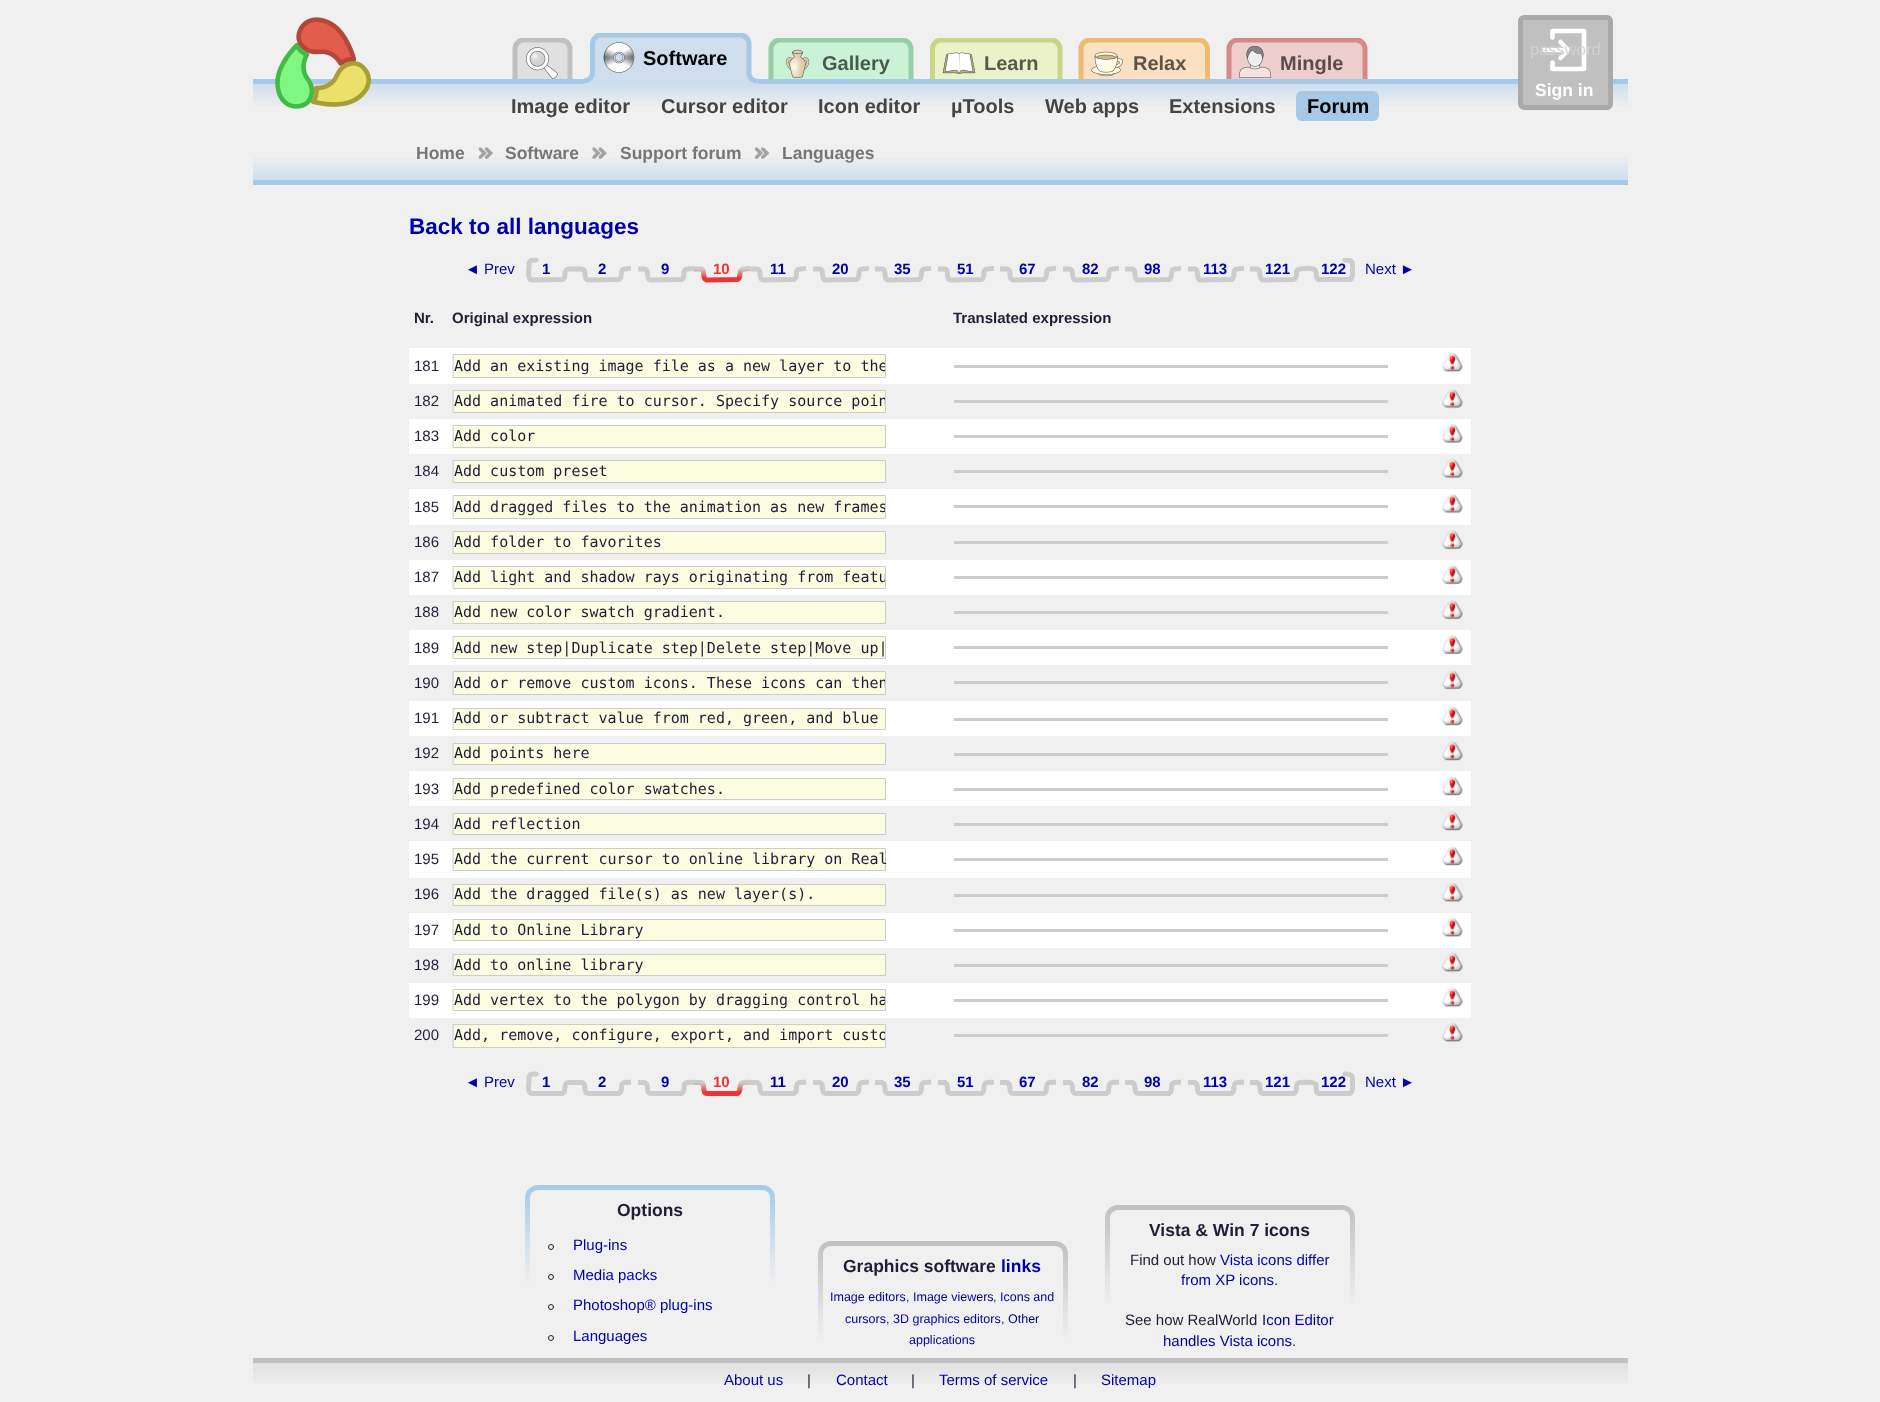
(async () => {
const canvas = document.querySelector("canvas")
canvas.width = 1880
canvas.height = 1402
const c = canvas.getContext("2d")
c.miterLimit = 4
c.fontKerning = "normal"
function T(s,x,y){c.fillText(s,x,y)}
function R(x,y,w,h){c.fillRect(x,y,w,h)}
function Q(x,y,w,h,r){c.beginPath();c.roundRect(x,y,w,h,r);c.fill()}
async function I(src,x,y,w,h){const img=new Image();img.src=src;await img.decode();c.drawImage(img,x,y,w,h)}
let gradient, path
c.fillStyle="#f0f0f0"
R(0,0,1880,1402)
c.fillStyle="#e0e0e0"
path = new Path2D("M506 86c5 0 9-4 9-8v-29c0-5 4-9 9-9h37c5 0 9 4 9 9v29c0 4 4 8 9 8v4h-73z")
c.fill(path)
c.save()
c.beginPath()
c.rect(506,38,73,52)
c.clip()
path = new Path2D("M506 86c5 0 9-3.5 9-8.5v-28.5c0-5 4-9 9-9h37c5 0 9 4 9 9v28.5c0 5 4 8.5 9 8.5")
c.strokeStyle="#c0c0c0"
c.lineWidth=5
c.stroke(path)
c.restore()
c.fillStyle="#c9f2d7"
path = new Path2D("M858 40h44c5 0 9 4 9 9v29c0 4 4 8 9 8v4h-62z")
c.fill(path)
c.save()
c.beginPath()
c.rect(858,38,62,52)
c.clip()
path = new Path2D("M857.5 40h45c5 0 8.5 4 8.5 9v28.5c0 5 4 8.5 9 8.5")
c.strokeStyle="#95cfaa"
c.lineWidth=5
c.stroke(path)
c.restore()
c.save()
c.beginPath()
c.rect(763,38,137,52)
c.clip()
path = new Path2D("M762 90v-4c5 0 9-4 9-8v-29c0-5 4-9 9-9h232v50z")
c.fill(path)
path = new Path2D("M762.5 86c5 0 8.5-3.5 8.5-8.5v-28.5c0-5 4-9 9-9h232.5")
c.strokeStyle="#95cfaa"
c.lineWidth=5
c.stroke(path)
c.restore()
c.fillStyle="#ebf2c9"
path = new Path2D("M1006 40h45c5 0 9 4 9 9v29c0 4 4 8 9 8v4h-63z")
c.fill(path)
c.save()
c.beginPath()
c.rect(1006,38,63,52)
c.clip()
path = new Path2D("M1006 40h45c5 0 9 4 9 9v28.5c0 5 4 8.5 9 8.5")
c.strokeStyle="#c6d586"
c.lineWidth=5
c.stroke(path)
c.restore()
c.save()
c.beginPath()
c.rect(924,38,125,52)
c.clip()
path = new Path2D("M924 90v-4c5 0 8-4 8-8v-29c0-5 4-9 9-9h233v50z")
c.fill(path)
path = new Path2D("M924 86c4.5 0 8.5-3.5 8.5-8.5v-28.5c0-5 4-9 8.5-9h233")
c.strokeStyle="#c6d586"
c.lineWidth=5
c.stroke(path)
c.restore()
c.fillStyle="#f9e1c2"
path = new Path2D("M1154 40h45c5 0 9 4 9 9v29c0 4 3 8 8 8v4h-62z")
c.fill(path)
c.save()
c.beginPath()
c.rect(1154,38,62,52)
c.clip()
path = new Path2D("M1154 40h45c4.5 0 8.5 4 8.5 9v28.5c0 5 4 8.5 8.5 8.5")
c.strokeStyle="#f0b96f"
c.lineWidth=5
c.stroke(path)
c.restore()
c.save()
c.beginPath()
c.rect(1073,38,123,52)
c.clip()
path = new Path2D("M1072 90v-4c5 0 9-4 9-8v-29c0-5 4-9 9-9h232v50z")
c.fill(path)
path = new Path2D("M1072.5 86c5 0 8.5-3.5 8.5-8.5v-28.5c0-5 4-9 9-9h232.5")
c.strokeStyle="#f0b96f"
c.lineWidth=5
c.stroke(path)
c.restore()
c.fillStyle="#eecdcd"
path = new Path2D("M1311 40h45c5 0 9 4 9 9v29c0 4 4 8 9 8v4h-63z")
c.fill(path)
c.save()
c.beginPath()
c.rect(1311,38,63,52)
c.clip()
path = new Path2D("M1311 40h45c5 0 9 4 9 9v28.5c0 5 4 8.5 9 8.5")
c.strokeStyle="#d78989"
c.lineWidth=5
c.stroke(path)
c.restore()
c.save()
c.beginPath()
c.rect(1220,38,134,52)
c.clip()
path = new Path2D("M1220 90v-4c5 0 9-4 9-8v-29c0-5 4-9 9-9h232v50z")
c.fill(path)
path = new Path2D("M1220 86c5 0 9-3.5 9-8.5v-28.5c0-5 3.5-9 8.5-9h232.5")
c.strokeStyle="#d78989"
c.lineWidth=5
c.stroke(path)
c.restore()
gradient = c.createLinearGradient(940,79,940,141)
gradient.addColorStop(0,"#a5c9e7")
gradient.addColorStop(.08,"#a5c9e7")
gradient.addColorStop(.08,"#cedeed")
gradient.addColorStop(.48,"#f0f0f0")
c.fillStyle = gradient
R(253,79,1375,28)
await I("1.png",275,17,96,92)
await I("2.png",526,47,32,32)
c.fillStyle="#cedeed"
path = new Path2D("M695 35h45c5 0 9 4 9 9v28c0 5 4 9 9 9v4h-63z")
c.fill(path)
c.save()
c.beginPath()
c.rect(695,33,63,52)
c.clip()
path = new Path2D("M695 35h45c5 0 9 4 9 9v28.5c0 5 3.5 8.5 8.5 8.5")
c.strokeStyle="#a5c9e7"
c.lineWidth=5
c.stroke(path)
c.restore()
c.save()
c.beginPath()
c.rect(584,33,154,52)
c.clip()
path = new Path2D("M584 85v-4c5 0 8-4 8-9v-28c0-5 4-9 9-9h233v50z")
c.fill(path)
path = new Path2D("M584 81c4.5 0 8.5-3.5 8.5-8.5v-28.5c0-5 4-9 8.5-9h233")
c.strokeStyle="#a5c9e7"
c.lineWidth=5
c.stroke(path)
c.restore()
await I("3.png",603,42,32,31)
c.font="bold 20px Liberation Sans"
c.fillStyle="#000"
T("Software",643,65)
c.fillStyle="#444"
T("Image editor",511,113)
T("Cursor editor",661,113)
T("Icon editor",818,113)
T("µTools",951,113)
T("Web apps",1045,113)
T("Extensions",1169,113)
c.fillStyle="#a5c9e7"
Q(1296,91,83,30,6)
c.fillStyle="#000"
T("Forum",1307,113)
await I("4.png",785,49,25,29)
c.fillStyle="#4b5a50"
T("Gallery",822,70)
await I("5.png",942,52,34,22)
c.fillStyle="#585a4b"
T("Learn",984,70)
await I("6.png",1091,51,32,26)
c.fillStyle="#5d5448"
T("Relax",1133,70)
await I("7.png",1238,46,34,32)
c.fillStyle="#594c4c"
T("Mingle",1280,70)
c.fillStyle="#c0c0c0"
c.beginPath()
c.roundRect(1520.5,17.5,90,90,3.5)
c.fill()
c.strokeStyle="#aaa"
c.lineWidth=5
c.stroke()
path = new Path2D("M1552.5 37.5v-6.5h31.5v38h-31.5v-6.5m-8-12.5h23.5m-7.5-8l7.5 8l-7.5 8")
c.strokeStyle="#fff"
c.lineWidth=4.7
c.lineCap="round"
c.lineJoin="round"
c.stroke(path)
c.font="16.5px Liberation Sans"
c.fillStyle="#d2d2d2"
T("password",1530,55)
c.font="bold 17.5px Liberation Sans"
c.fillStyle="#fff"
T("Sign in",1535,96)
gradient = c.createLinearGradient(940,180,940,90)
gradient.addColorStop(0,"#cedeed")
gradient.addColorStop(.28,"#f0f0f0")
c.fillStyle = gradient
R(253,157,1375,23)
c.fillStyle="#a5c9e7"
R(253,180,1375,5)
c.fillStyle="#777"
T("Home",416,159)
await I("8.png",478,147,15,12)
T("Software",505,159)
await I("9.png",592,147,15,12)
T("Support forum",620,159)
await I("10.png",755,147,15,12)
T("Languages",782,159)
c.font="bold 22.5px Liberation Sans"
c.fillStyle="#00a"
T("Back to all languages",409,234)
c.font="15px Liberation Sans"
T("◄ Prev",465,274)
c.save()
c.beginPath()
c.rect(519,258,56,25)
c.clip()
path = new Path2D("M536 260c-5 0-7 0-7 6c0 3-2 13 2.5 14l31-.5c5-2-.5-10.5 6.5-10.5h13c6 1 0 9.5 6 11l31-.5c5-2-.5-10.5 6-10.5c3.5-.5 13.5-1.5 15.5 1.5c2 2.5-1 7.5 3 9h31.5c3.5-1.5 2.5-6.5 2.5-9.5c0-8 1-10-7.5-10")
c.strokeStyle="#ccc"
c.lineWidth=5
c.lineJoin="miter"
c.stroke(path)
c.restore()
c.font="bold 15px Liberation Sans"
T("1",542,274)
c.save()
c.beginPath()
c.rect(575,258,56,25)
c.clip()
path = new Path2D("M536 260c-5 0-7 0-7 6c0 3-2 13 2.5 14l31-.5c5-2-.5-10.5 6.5-10.5h13c6 1 0 9.5 6 11l31-.5c5-2-.5-10.5 6-10.5c3.5-.5 13.5-1.5 15.5 1.5c2 2.5-1 7.5 3 9h31.5c3.5-1.5 2.5-6.5 2.5-9.5c0-8 1-10-7.5-10")
c.strokeStyle="#ccc"
c.lineWidth=5
c.lineJoin="miter"
c.stroke(path)
c.restore()
T("2",598,274)
c.save()
c.beginPath()
c.rect(638,258,56,25)
c.clip()
path = new Path2D("M599 260c-5.5 0-8 0-8 6c0 3-1.5 13 3 14l31-.5c5-2-.5-10.5 6-10.5h13.5c6 1 0 9.5 6 11l31-.5c5-2-.5-10.5 6-10.5c3.5-.5 13.5-1.5 15.5 1.5c2 2.5-1 7.5 3 9h31.5c3.5-1.5 2.5-6.5 2.5-9.5c0-8 1-10-7.5-10")
c.strokeStyle="#ccc"
c.lineWidth=5
c.lineJoin="miter"
c.stroke(path)
c.restore()
T("9",661,274)
c.save()
c.beginPath()
c.rect(694,258,56,25)
c.clip()
path = new Path2D("M655 260c-5.5 0-7.5 0-7.5 6c0 3-2 13 3 14l31-.5c5-2-.5-10.5 6-10.5h13.5c5.5 1 0 9.5 5.5 11l31-.5c5-2-.5-10.5 6.5-10.5c3-.5 13.5-1.5 15.5 1.5c2 2.5-1 7.5 3 9h31.5c3.5-1.5 2-6.5 2-9.5c0-8 1.5-10-7-10")
gradient = c.createLinearGradient(648,278,648,269)
gradient.addColorStop(0,"#e33")
gradient.addColorStop(1,"#ccc")
c.strokeStyle = gradient
c.lineWidth=5
c.lineJoin="miter"
c.stroke(path)
c.restore()
c.fillStyle="#e33"
T("10",713,274)
c.save()
c.beginPath()
c.rect(750,258,56,25)
c.clip()
path = new Path2D("M711 260c-5 0-7 0-7 6c0 3-2 13 2.5 14l31-.5c5-2-.5-10.5 6.5-10.5h13c6 1 0 9.5 6 11l31-.5c5-2-.5-10.5 6-10.5c3.5-.5 13.5-1.5 15.5 1.5c2 2.5-1 7.5 3 9h31.5c3.5-1.5 2.5-6.5 2.5-9.5c0-8 1-10-7.5-10")
c.strokeStyle="#ccc"
c.lineWidth=5
c.lineJoin="miter"
c.stroke(path)
c.restore()
c.fillStyle="#00a"
T("11",770,274)
c.save()
c.beginPath()
c.rect(813,258,56,25)
c.clip()
path = new Path2D("M774 260c-5.5 0-8 0-8 6c0 3-1.5 13 3 14l31-.5c5-2-.5-10.5 6-10.5h13.5c6 1 0 9.5 6 11l31-.5c5-2-.5-10.5 6-10.5c3.5-.5 13.5-1.5 15.5 1.5c2 2.5-1 7.5 3 9h31.5c3.5-1.5 2.5-6.5 2.5-9.5c0-8 1-10-7.5-10")
c.strokeStyle="#ccc"
c.lineWidth=5
c.lineJoin="miter"
c.stroke(path)
c.restore()
T("20",832,274)
c.save()
c.beginPath()
c.rect(875,258,56,25)
c.clip()
path = new Path2D("M836 260c-5 0-7 0-7 6c0 3-2 13 2.5 14l31-.5c5-2-.5-10.5 6.5-10.5h13c6 1 0 9.5 6 11l31-.5c5-2-.5-10.5 6-10.5c3.5-.5 13.5-1.5 15.5 1.5c2 2.5-1 7.5 3 9h31.5c3.5-1.5 2.5-6.5 2.5-9.5c0-8 1-10-7.5-10")
c.strokeStyle="#ccc"
c.lineWidth=5
c.lineJoin="miter"
c.stroke(path)
c.restore()
T("35",894,274)
c.save()
c.beginPath()
c.rect(938,258,56,25)
c.clip()
path = new Path2D("M899 260c-5.5 0-8 0-8 6c0 3-1.5 13 3 14l31-.5c5-2-.5-10.5 6-10.5h13.5c6 1 0 9.5 6 11l31-.5c5-2-.5-10.5 6-10.5c3.5-.5 13.5-1.5 15.5 1.5c2 2.5-1 7.5 3 9h31.5c3.5-1.5 2.5-6.5 2.5-9.5c0-8 1-10-7.5-10")
c.strokeStyle="#ccc"
c.lineWidth=5
c.lineJoin="miter"
c.stroke(path)
c.restore()
T("51",957,274)
c.save()
c.beginPath()
c.rect(1000,258,56,25)
c.clip()
path = new Path2D("M961 260c-5 0-7 0-7 6c0 3-2 13 2.5 14l31-.5c5-2-.5-10.5 6.5-10.5h13c6 1 0 9.5 6 11l31-.5c5-2-.5-10.5 6-10.5c3.5-.5 13.5-1.5 15.5 1.5c2 2.5-1 7.5 3 9h31.5c3.5-1.5 2.5-6.5 2.5-9.5c0-8 1-10-7.5-10")
c.strokeStyle="#ccc"
c.lineWidth=5
c.lineJoin="miter"
c.stroke(path)
c.restore()
T("67",1019,274)
c.save()
c.beginPath()
c.rect(1063,258,56,25)
c.clip()
path = new Path2D("M1024 260c-5.5 0-8 0-8 6c0 3-1.5 13 3 14l31-.5c5-2-.5-10.5 6-10.5h13.5c6 1 0 9.5 6 11l31-.5c5-2-.5-10.5 6-10.5c3.5-.5 13.5-1.5 15.5 1.5c2 2.5-1 7.5 3 9h31.5c3.5-1.5 2.5-6.5 2.5-9.5c0-8 1-10-7.5-10")
c.strokeStyle="#ccc"
c.lineWidth=5
c.lineJoin="miter"
c.stroke(path)
c.restore()
T("82",1082,274)
c.save()
c.beginPath()
c.rect(1125,258,56,25)
c.clip()
path = new Path2D("M1086 260c-5 0-7 0-7 6c0 3-2 13 2.5 14l31-.5c5-2-.5-10.5 6.5-10.5h13c6 1 0 9.5 6 11l31-.5c5-2-.5-10.5 6-10.5c3.5-.5 13.5-1.5 15.5 1.5c2 2.5-1 7.5 3 9h31.5c3.5-1.5 2.5-6.5 2.5-9.5c0-8 1-10-7.5-10")
c.strokeStyle="#ccc"
c.lineWidth=5
c.lineJoin="miter"
c.stroke(path)
c.restore()
T("98",1144,274)
c.save()
c.beginPath()
c.rect(1188,258,56,25)
c.clip()
path = new Path2D("M1149 260c-5.5 0-8 0-8 6c0 3-1.5 13 3 14l31-.5c5-2-.5-10.5 6-10.5h13.5c6 1 0 9.5 6 11l31-.5c5-2-.5-10.5 6-10.5c3.5-.5 13.5-1.5 15.5 1.5c2 2.5-1 7.5 3 9h31.5c3.5-1.5 2.5-6.5 2.5-9.5c0-8 1-10-7.5-10")
c.strokeStyle="#ccc"
c.lineWidth=5
c.lineJoin="miter"
c.stroke(path)
c.restore()
T("113",1203,274)
c.save()
c.beginPath()
c.rect(1250,258,56,25)
c.clip()
path = new Path2D("M1211 260c-5 0-7 0-7 6c0 3-2 13 2.5 14l31-.5c5-2-.5-10.5 6.5-10.5h13c6 1 0 9.5 6 11l31-.5c5-2-.5-10.5 6-10.5c3.5-.5 13.5-1.5 15.5 1.5c2 2.5-1 7.5 3 9h31.5c3.5-1.5 2.5-6.5 2.5-9.5c0-8 1-10-7.5-10")
c.strokeStyle="#ccc"
c.lineWidth=5
c.lineJoin="miter"
c.stroke(path)
c.restore()
T("121",1265,274)
c.save()
c.beginPath()
c.rect(1306,258,57,25)
c.clip()
path = new Path2D("M1211 260c-5 0-7 0-7 6c0 3-2 13 2.5 14l31-.5c5-2-.5-10.5 6.5-10.5h13c6 1 0 9.5 6 11l31-.5c5-2-.5-10.5 6-10.5c3.5-.5 13.5-1.5 15.5 1.5c2 2.5-1 7.5 3 9h31.5c3.5-1.5 2.5-6.5 2.5-9.5c0-8 1-10-7.5-10")
c.strokeStyle="#ccc"
c.lineWidth=5
c.lineJoin="miter"
c.stroke(path)
c.restore()
T("122",1321,274)
c.font="15px Liberation Sans"
T("Next ►",1365,274)
c.font="bold 15px Liberation Sans"
c.fillStyle="#1e1e37"
T("Nr.",414,323)
T("Original expression",452,323)
T("Translated expression",953,323)
c.fillStyle="#fff"
R(409,348,1062,36)
c.font="15px Liberation Sans"
c.fillStyle="#1e1e37"
T("181",414,371)
c.fillStyle="#fcfce0"
c.beginPath()
c.rect(453.5,354.5,432,23)
c.fill()
c.strokeStyle="#ccc"
c.lineWidth=1
c.lineJoin="miter"
c.stroke()
c.save()
c.beginPath()
c.rect(454,355,431,21)
c.clip()
c.font="15px DejaVu Sans Mono"
c.fillStyle="#1e1e37"
T("Add an existing image file as a new layer to the",454,371)
c.restore()
c.fillStyle="#ccc"
R(954,365,434,3)
await I("11.png",1442,352,21,21)
c.fillStyle="#1e1e37"
T("182",414,406)
c.fillStyle="#fcfce0"
c.beginPath()
c.rect(453.5,390.5,432,22)
c.fill()
c.stroke()
c.save()
c.beginPath()
c.rect(454,391,431,20)
c.clip()
c.font="15px DejaVu Sans Mono"
c.fillStyle="#1e1e37"
T("Add animated fire to cursor. Specify source poin",454,406)
c.restore()
c.fillStyle="#ccc"
R(954,400,434,3)
await I("12.png",1442,389,21,20)
c.fillStyle="#fff"
R(409,419,1062,35)
c.fillStyle="#1e1e37"
T("183",414,441)
c.fillStyle="#fcfce0"
c.beginPath()
c.rect(453.5,425.5,432,22)
c.fill()
c.stroke()
c.font="15px DejaVu Sans Mono"
c.fillStyle="#1e1e37"
T("Add color",454,441)
c.fillStyle="#ccc"
R(954,435,434,3)
await I("13.png",1442,424,21,20)
c.font="15px Liberation Sans"
c.fillStyle="#1e1e37"
T("184",414,476)
c.fillStyle="#fcfce0"
c.beginPath()
c.rect(453.5,460.5,432,22)
c.fill()
c.stroke()
c.font="15px DejaVu Sans Mono"
c.fillStyle="#1e1e37"
T("Add custom preset",454,476)
c.fillStyle="#ccc"
R(954,470,434,3)
await I("12.png",1442,459,21,20)
c.fillStyle="#fff"
R(409,489,1062,36)
c.font="15px Liberation Sans"
c.fillStyle="#1e1e37"
T("185",414,512)
c.fillStyle="#fcfce0"
c.beginPath()
c.rect(453.5,495.5,432,23)
c.fill()
c.stroke()
c.save()
c.beginPath()
c.rect(454,496,431,22)
c.clip()
c.font="15px DejaVu Sans Mono"
c.fillStyle="#1e1e37"
T("Add dragged files to the animation as new frames",454,512)
c.restore()
c.fillStyle="#ccc"
R(954,505,434,3)
await I("13.png",1442,494,21,20)
c.fillStyle="#1e1e37"
T("186",414,547)
c.fillStyle="#fcfce0"
c.beginPath()
c.rect(453.5,531.5,432,22)
c.fill()
c.stroke()
c.font="15px DejaVu Sans Mono"
c.fillStyle="#1e1e37"
T("Add folder to favorites",454,547)
c.fillStyle="#ccc"
R(954,541,434,3)
await I("14.png",1442,530,21,20)
c.fillStyle="#fff"
R(409,560,1062,35)
c.font="15px Liberation Sans"
c.fillStyle="#1e1e37"
T("187",414,582)
c.fillStyle="#fcfce0"
c.beginPath()
c.rect(453.5,566.5,432,22)
c.fill()
c.stroke()
c.save()
c.beginPath()
c.rect(454,568,431,20)
c.clip()
c.font="15px DejaVu Sans Mono"
c.fillStyle="#1e1e37"
T("Add light and shadow rays originating from featu",454,582)
c.restore()
c.fillStyle="#ccc"
R(954,576,434,3)
await I("15.png",1442,565,21,20)
c.fillStyle="#1e1e37"
T("188",414,617)
c.fillStyle="#fcfce0"
c.beginPath()
c.rect(453.5,601.5,432,22)
c.fill()
c.stroke()
c.font="15px DejaVu Sans Mono"
c.fillStyle="#1e1e37"
T("Add new color swatch gradient.",454,617)
c.fillStyle="#ccc"
R(954,611,434,3)
await I("14.png",1442,600,21,20)
c.fillStyle="#fff"
R(409,630,1062,35)
c.font="15px Liberation Sans"
c.fillStyle="#1e1e37"
T("189",414,653)
c.fillStyle="#fcfce0"
c.beginPath()
c.rect(453.5,636.5,432,22)
c.fill()
c.stroke()
c.font="15px DejaVu Sans Mono"
c.fillStyle="#1e1e37"
T("Add new step|Duplicate step|Delete step|Move up|",454,653)
c.fillStyle="#ccc"
R(954,646,434,3)
await I("15.png",1442,635,21,20)
c.font="15px Liberation Sans"
c.fillStyle="#1e1e37"
T("190",414,688)
c.fillStyle="#fcfce0"
c.beginPath()
c.rect(453.5,671.5,432,23)
c.fill()
c.stroke()
c.save()
c.beginPath()
c.rect(454,673,431,21)
c.clip()
c.font="15px DejaVu Sans Mono"
c.fillStyle="#1e1e37"
T("Add or remove custom icons. These icons can then",454,688)
c.restore()
c.fillStyle="#ccc"
R(954,681,434,3)
await I("14.png",1442,670,21,20)
c.fillStyle="#fff"
R(409,701,1062,35)
c.fillStyle="#1e1e37"
T("191",414,723)
c.fillStyle="#fcfce0"
c.beginPath()
c.rect(453.5,708.5,432,21)
c.fill()
c.stroke()
c.font="15px DejaVu Sans Mono"
c.fillStyle="#1e1e37"
T("Add or subtract value from red, green, and blue",454,723)
c.fillStyle="#ccc"
R(954,718,434,3)
await I("16.png",1442,706,21,20)
c.font="15px Liberation Sans"
c.fillStyle="#1e1e37"
T("192",414,758)
c.fillStyle="#fcfce0"
c.beginPath()
c.rect(453.5,743.5,432,21)
c.fill()
c.stroke()
c.font="15px DejaVu Sans Mono"
c.fillStyle="#1e1e37"
T("Add points here",454,758)
c.fillStyle="#ccc"
R(954,753,434,3)
await I("17.png",1442,741,21,20)
c.fillStyle="#fff"
R(409,771,1062,35)
c.font="15px Liberation Sans"
c.fillStyle="#1e1e37"
T("193",414,794)
c.fillStyle="#fcfce0"
c.beginPath()
c.rect(453.5,778.5,432,21)
c.fill()
c.stroke()
c.font="15px DejaVu Sans Mono"
c.fillStyle="#1e1e37"
T("Add predefined color swatches.",454,794)
c.fillStyle="#ccc"
R(954,788,434,3)
await I("18.png",1442,776,21,20)
c.font="15px Liberation Sans"
c.fillStyle="#1e1e37"
T("194",414,829)
c.fillStyle="#fcfce0"
c.beginPath()
c.rect(453.5,813.5,432,21)
c.fill()
c.stroke()
c.font="15px DejaVu Sans Mono"
c.fillStyle="#1e1e37"
T("Add reflection",454,829)
c.fillStyle="#ccc"
R(954,823,434,3)
await I("17.png",1442,811,21,20)
c.fillStyle="#fff"
R(409,841,1062,37)
c.font="15px Liberation Sans"
c.fillStyle="#1e1e37"
T("195",414,864)
c.fillStyle="#fcfce0"
c.beginPath()
c.rect(453.5,848.5,432,22)
c.fill()
c.stroke()
c.font="15px DejaVu Sans Mono"
c.fillStyle="#1e1e37"
T("Add the current cursor to online library on Real",454,864)
c.fillStyle="#ccc"
R(954,858,434,3)
await I("16.png",1442,846,21,20)
c.font="15px Liberation Sans"
c.fillStyle="#1e1e37"
T("196",414,899)
c.fillStyle="#fcfce0"
c.beginPath()
c.rect(453.5,884.5,432,21)
c.fill()
c.stroke()
c.font="15px DejaVu Sans Mono"
c.fillStyle="#1e1e37"
T("Add the dragged file(s) as new layer(s).",454,899)
c.fillStyle="#ccc"
R(954,894,434,3)
await I("19.png",1442,882,21,21)
c.fillStyle="#fff"
R(409,913,1062,35)
c.font="15px Liberation Sans"
c.fillStyle="#1e1e37"
T("197",414,935)
c.fillStyle="#fcfce0"
c.beginPath()
c.rect(453.5,919.5,432,21)
c.fill()
c.stroke()
c.font="15px DejaVu Sans Mono"
c.fillStyle="#1e1e37"
T("Add to Online Library",454,935)
c.fillStyle="#ccc"
R(954,929,434,3)
await I("11.png",1442,917,21,21)
c.font="15px Liberation Sans"
c.fillStyle="#1e1e37"
T("198",414,970)
c.fillStyle="#fcfce0"
c.beginPath()
c.rect(453.5,954.5,432,21)
c.fill()
c.stroke()
c.font="15px DejaVu Sans Mono"
c.fillStyle="#1e1e37"
T("Add to online library",454,970)
c.fillStyle="#ccc"
R(954,964,434,3)
await I("19.png",1442,952,21,21)
c.fillStyle="#fff"
R(409,983,1062,35)
c.font="15px Liberation Sans"
c.fillStyle="#1e1e37"
T("199",414,1005)
c.fillStyle="#fcfce0"
c.beginPath()
c.rect(453.5,989.5,432,21)
c.fill()
c.stroke()
c.save()
c.beginPath()
c.rect(454,990,431,20)
c.clip()
c.font="15px DejaVu Sans Mono"
c.fillStyle="#1e1e37"
T("Add vertex to the polygon by dragging control ha",454,1005)
c.restore()
c.fillStyle="#ccc"
R(954,999,434,3)
await I("11.png",1442,987,21,21)
c.fillStyle="#1e1e37"
T("200",414,1040)
c.fillStyle="#fcfce0"
c.beginPath()
c.rect(453.5,1024.5,432,23)
c.fill()
c.stroke()
c.save()
c.beginPath()
c.rect(454,1025,431,21)
c.clip()
c.font="15px DejaVu Sans Mono"
c.fillStyle="#1e1e37"
T("Add, remove, configure, export, and import custo",454,1040)
c.restore()
c.fillStyle="#ccc"
R(954,1034,434,3)
await I("20.png",1442,1022,21,21)
c.fillStyle="#00a"
T("◄ Prev",465,1087)
c.save()
c.beginPath()
c.rect(519,1071,56,25)
c.clip()
path = new Path2D("M536 1074c-5 0-7-.5-7 5.5c0 3.5-2 13 2.5 14h31c5-2-.5-11 6.5-11h13c6 1.5 0 10 6 11h31c5-2-.5-11 6-11c3.5 0 13.5-1.5 15.5 1.5c2 3-1 8 3 9.5h31.5c3.5-1.5 2.5-7 2.5-9.5c0-8 1-10-7.5-10")
c.lineWidth=5
c.stroke(path)
c.restore()
c.font="bold 15px Liberation Sans"
T("1",542,1087)
c.save()
c.beginPath()
c.rect(575,1071,56,25)
c.clip()
path = new Path2D("M536 1074c-5 0-7-.5-7 5.5c0 3.5-2 13 2.5 14h31c5-2-.5-11 6.5-11h13c6 1.5 0 10 6 11h31c5-2-.5-11 6-11c3.5 0 13.5-1.5 15.5 1.5c2 3-1 8 3 9.5h31.5c3.5-1.5 2.5-7 2.5-9.5c0-8 1-10-7.5-10")
c.lineWidth=5
c.stroke(path)
c.restore()
T("2",598,1087)
c.save()
c.beginPath()
c.rect(638,1071,56,25)
c.clip()
path = new Path2D("M599 1074c-5.5 0-8-.5-8 5.5c0 3.5-1.5 13 3 14h31c5-2-.5-11 6-11h13.5c6 1.5 0 10 6 11h31c5-2-.5-11 6-11c3.5 0 13.5-1.5 15.5 1.5c2 3-1 8 3 9.5h31.5c3.5-1.5 2.5-7 2.5-9.5c0-8 1-10-7.5-10")
c.lineWidth=5
c.stroke(path)
c.restore()
T("9",661,1087)
c.save()
c.beginPath()
c.rect(694,1071,56,25)
c.clip()
path = new Path2D("M655 1074c-5.5 0-7.5-.5-7.5 5.5c0 3.5-2 13 3 14h31c5-2-.5-11 6-11h13.5c5.5 1.5 0 10 5.5 11h31c5-2-.5-11 6.5-11c3 0 13.5-1.5 15.5 1.5c2 3-1 8 3 9.5h31.5c3.5-1.5 2-7 2-9.5c0-8 1.5-10-7-10")
gradient = c.createLinearGradient(648,1092,648,1083)
gradient.addColorStop(0,"#e33")
gradient.addColorStop(1,"#ccc")
c.strokeStyle = gradient
c.lineWidth=5
c.stroke(path)
c.restore()
c.fillStyle="#e33"
T("10",713,1087)
c.save()
c.beginPath()
c.rect(750,1071,56,25)
c.clip()
path = new Path2D("M711 1074c-5 0-7-.5-7 5.5c0 3.5-2 13 2.5 14h31c5-2-.5-11 6.5-11h13c6 1.5 0 10 6 11h31c5-2-.5-11 6-11c3.5 0 13.5-1.5 15.5 1.5c2 3-1 8 3 9.5h31.5c3.5-1.5 2.5-7 2.5-9.5c0-8 1-10-7.5-10")
c.lineWidth=5
c.stroke(path)
c.restore()
c.fillStyle="#00a"
T("11",770,1087)
c.save()
c.beginPath()
c.rect(813,1071,56,25)
c.clip()
path = new Path2D("M774 1074c-5.5 0-8-.5-8 5.5c0 3.5-1.5 13 3 14h31c5-2-.5-11 6-11h13.5c6 1.5 0 10 6 11h31c5-2-.5-11 6-11c3.5 0 13.5-1.5 15.5 1.5c2 3-1 8 3 9.5h31.5c3.5-1.5 2.5-7 2.5-9.5c0-8 1-10-7.5-10")
c.lineWidth=5
c.stroke(path)
c.restore()
T("20",832,1087)
c.save()
c.beginPath()
c.rect(875,1071,56,25)
c.clip()
path = new Path2D("M836 1074c-5 0-7-.5-7 5.5c0 3.5-2 13 2.5 14h31c5-2-.5-11 6.5-11h13c6 1.5 0 10 6 11h31c5-2-.5-11 6-11c3.5 0 13.5-1.5 15.5 1.5c2 3-1 8 3 9.5h31.5c3.5-1.5 2.5-7 2.5-9.5c0-8 1-10-7.5-10")
c.lineWidth=5
c.stroke(path)
c.restore()
T("35",894,1087)
c.save()
c.beginPath()
c.rect(938,1071,56,25)
c.clip()
path = new Path2D("M899 1074c-5.5 0-8-.5-8 5.5c0 3.5-1.5 13 3 14h31c5-2-.5-11 6-11h13.5c6 1.5 0 10 6 11h31c5-2-.5-11 6-11c3.5 0 13.5-1.5 15.5 1.5c2 3-1 8 3 9.5h31.5c3.5-1.5 2.5-7 2.5-9.5c0-8 1-10-7.5-10")
c.lineWidth=5
c.stroke(path)
c.restore()
T("51",957,1087)
c.save()
c.beginPath()
c.rect(1000,1071,56,25)
c.clip()
path = new Path2D("M961 1074c-5 0-7-.5-7 5.5c0 3.5-2 13 2.5 14h31c5-2-.5-11 6.5-11h13c6 1.5 0 10 6 11h31c5-2-.5-11 6-11c3.5 0 13.5-1.5 15.5 1.5c2 3-1 8 3 9.5h31.5c3.5-1.5 2.5-7 2.5-9.5c0-8 1-10-7.5-10")
c.lineWidth=5
c.stroke(path)
c.restore()
T("67",1019,1087)
c.save()
c.beginPath()
c.rect(1063,1071,56,25)
c.clip()
path = new Path2D("M1024 1074c-5.5 0-8-.5-8 5.5c0 3.5-1.5 13 3 14h31c5-2-.5-11 6-11h13.5c6 1.5 0 10 6 11h31c5-2-.5-11 6-11c3.5 0 13.5-1.5 15.5 1.5c2 3-1 8 3 9.5h31.5c3.5-1.5 2.5-7 2.5-9.5c0-8 1-10-7.5-10")
c.lineWidth=5
c.stroke(path)
c.restore()
T("82",1082,1087)
c.save()
c.beginPath()
c.rect(1125,1071,56,25)
c.clip()
path = new Path2D("M1086 1074c-5 0-7-.5-7 5.5c0 3.5-2 13 2.5 14h31c5-2-.5-11 6.5-11h13c6 1.5 0 10 6 11h31c5-2-.5-11 6-11c3.5 0 13.5-1.5 15.5 1.5c2 3-1 8 3 9.5h31.5c3.5-1.5 2.5-7 2.5-9.5c0-8 1-10-7.5-10")
c.lineWidth=5
c.stroke(path)
c.restore()
T("98",1144,1087)
c.save()
c.beginPath()
c.rect(1188,1071,56,25)
c.clip()
path = new Path2D("M1149 1074c-5.5 0-8-.5-8 5.5c0 3.5-1.5 13 3 14h31c5-2-.5-11 6-11h13.5c6 1.5 0 10 6 11h31c5-2-.5-11 6-11c3.5 0 13.5-1.5 15.5 1.5c2 3-1 8 3 9.5h31.5c3.5-1.5 2.5-7 2.5-9.5c0-8 1-10-7.5-10")
c.lineWidth=5
c.stroke(path)
c.restore()
T("113",1203,1087)
c.save()
c.beginPath()
c.rect(1250,1071,56,25)
c.clip()
path = new Path2D("M1211 1074c-5 0-7-.5-7 5.5c0 3.5-2 13 2.5 14h31c5-2-.5-11 6.5-11h13c6 1.5 0 10 6 11h31c5-2-.5-11 6-11c3.5 0 13.5-1.5 15.5 1.5c2 3-1 8 3 9.5h31.5c3.5-1.5 2.5-7 2.5-9.5c0-8 1-10-7.5-10")
c.lineWidth=5
c.stroke(path)
c.restore()
T("121",1265,1087)
c.save()
c.beginPath()
c.rect(1306,1071,57,25)
c.clip()
path = new Path2D("M1211 1074c-5 0-7-.5-7 5.5c0 3.5-2 13 2.5 14h31c5-2-.5-11 6.5-11h13c6 1.5 0 10 6 11h31c5-2-.5-11 6-11c3.5 0 13.5-1.5 15.5 1.5c2 3-1 8 3 9.5h31.5c3.5-1.5 2.5-7 2.5-9.5c0-8 1-10-7.5-10")
c.lineWidth=5
c.stroke(path)
c.restore()
T("122",1321,1087)
c.font="15px Liberation Sans"
T("Next ►",1365,1087)
gradient = c.createLinearGradient(650,1185,650,1358)
gradient.addColorStop(0,"#a5c9e7")
gradient.addColorStop(.58,"#f0f0f0")
c.fillStyle = gradient
c.beginPath()
c.roundRect(525,1185,250,173,[13,13,0,0])
c.fill()
c.fillStyle="#f0f0f0"
c.beginPath()
c.roundRect(530,1190,240,168,[8,8,0,0])
c.fill()
c.font="bold 17.5px Liberation Sans"
c.fillStyle="#1e1e37"
T("Options",617,1216)
c.beginPath()
c.arc(551,1247,2.5,0,7)
c.strokeStyle="#1e1e37"
c.stroke()
c.font="15px Liberation Sans"
c.fillStyle="#00a"
T("Plug-ins",573,1250)
c.beginPath()
c.arc(551,1277,2.5,0,7)
c.stroke()
T("Media packs",573,1280)
c.beginPath()
c.arc(551,1307,2.5,0,7)
c.stroke()
T("Photoshop® plug-ins",573,1310)
c.beginPath()
c.arc(551,1338,2.5,0,7)
c.stroke()
T("Languages",573,1341)
gradient = c.createLinearGradient(943,1241,943,1358)
gradient.addColorStop(0,"#c0c0c0")
gradient.addColorStop(.86,"#f0f0f0")
c.fillStyle = gradient
c.beginPath()
c.roundRect(818,1241,250,117,[13,13,0,0])
c.fill()
c.fillStyle="#f0f0f0"
c.beginPath()
c.roundRect(823,1246,240,112,[8,8,0,0])
c.fill()
c.font="bold 17.5px Liberation Sans"
c.fillStyle="#1e1e37"
T("Graphics software",843,1272)
c.fillStyle="#00a"
T("links",1001,1272)
c.font="12.5px Liberation Sans"
T("Image editors",830,1301)
c.fillStyle="#1e1e37"
T(",",906,1301)
c.fillStyle="#00a"
T("Image viewers",913,1301)
c.fillStyle="#1e1e37"
T(",",993,1301)
c.fillStyle="#00a"
T("Icons and",1000,1301)
T("cursors",845,1323)
c.fillStyle="#1e1e37"
T(",",886,1323)
c.fillStyle="#00a"
T("3D graphics editors",893,1323)
c.fillStyle="#1e1e37"
T(",",1001,1323)
c.fillStyle="#00a"
T("Other",1008,1323)
T("applications",909,1344)
gradient = c.createLinearGradient(1230,1205,1230,1358)
gradient.addColorStop(0,"#c0c0c0")
gradient.addColorStop(.66,"#f0f0f0")
c.fillStyle = gradient
c.beginPath()
c.roundRect(1105,1205,250,153,[13,13,0,0])
c.fill()
c.fillStyle="#f0f0f0"
c.beginPath()
c.roundRect(1110,1210,240,148,[8,8,0,0])
c.fill()
c.font="bold 17.5px Liberation Sans"
c.fillStyle="#1e1e37"
T("Vista & Win 7 icons",1149,1236)
c.font="15px Liberation Sans"
T("Find out how",1130,1265)
c.fillStyle="#00a"
T("Vista icons differ",1220,1265)
T("from XP icons",1181,1285)
c.fillStyle="#1e1e37"
T(".",1274,1285)
T("See how RealWorld",1125,1325)
c.fillStyle="#00a"
T("Icon Editor",1262,1325)
T("handles Vista icons",1163,1346)
c.fillStyle="#1e1e37"
T(".",1292,1346)
gradient = c.createLinearGradient(940,1358,940,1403)
gradient.addColorStop(0,"#c0c0c0")
gradient.addColorStop(.11,"#c0c0c0")
gradient.addColorStop(.11,"#e0e0e0")
gradient.addColorStop(.67,"#f0f0f0")
c.fillStyle = gradient
R(253,1358,1375,26)
c.fillStyle="#00a"
T("About us",724,1385)
c.fillStyle="#1e1e37"
T("|",807,1385)
c.fillStyle="#00a"
T("Contact",836,1385)
c.fillStyle="#1e1e37"
T("|",911,1385)
c.fillStyle="#00a"
T("Terms of service",939,1385)
c.fillStyle="#1e1e37"
T("|",1073,1385)
c.fillStyle="#00a"
T("Sitemap",1101,1385)
})()
